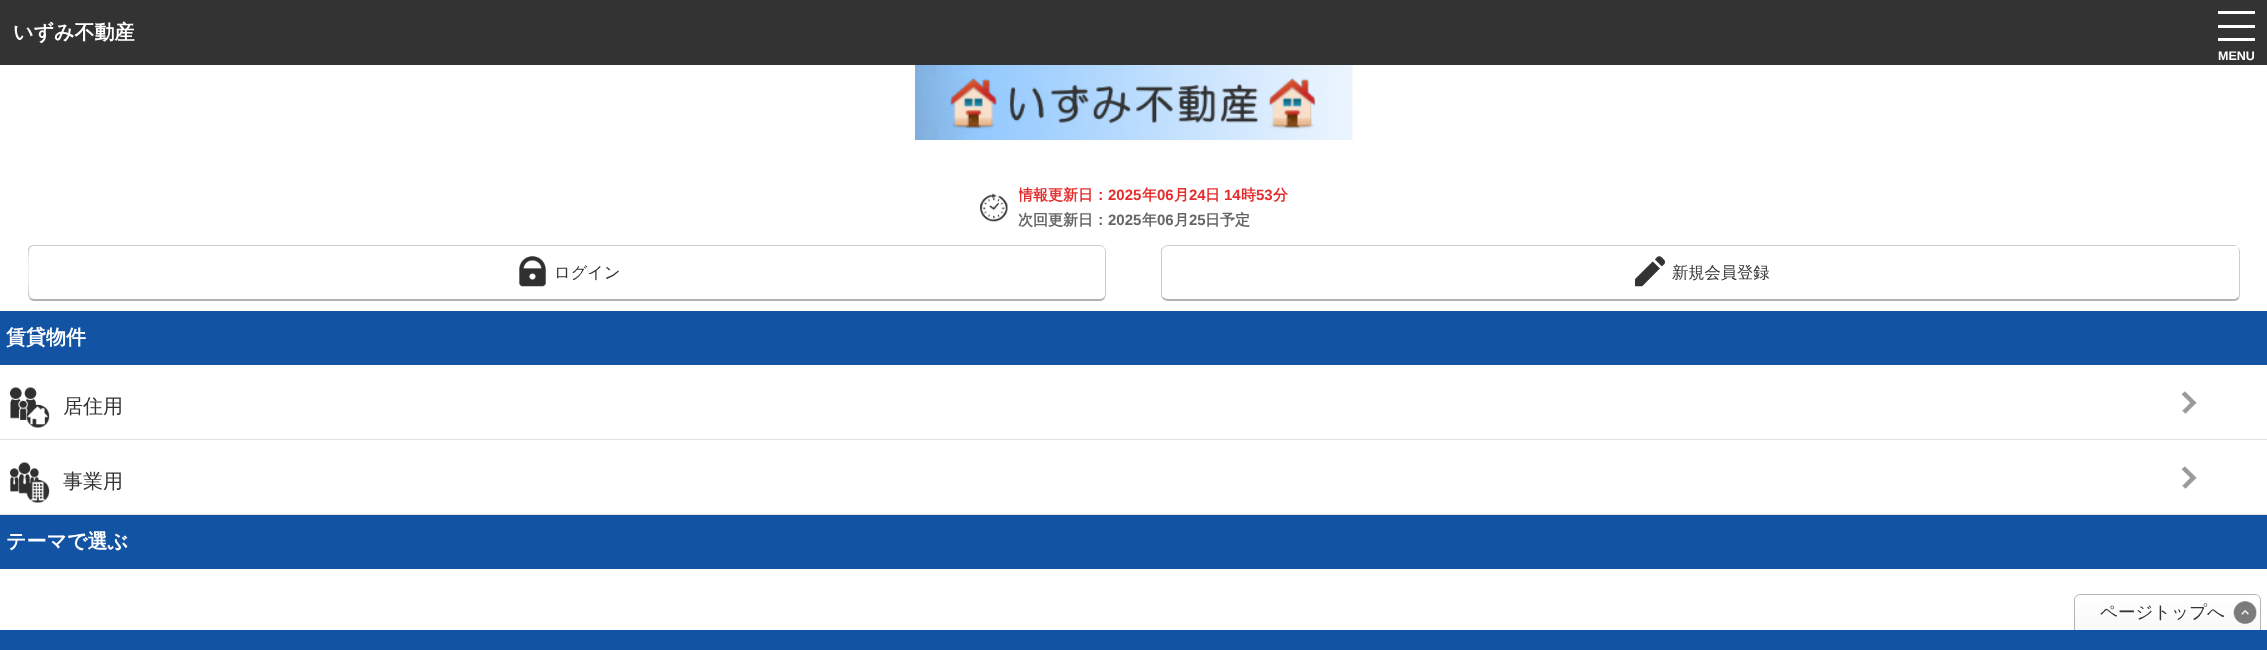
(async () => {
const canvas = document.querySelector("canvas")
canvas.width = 2267
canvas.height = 650
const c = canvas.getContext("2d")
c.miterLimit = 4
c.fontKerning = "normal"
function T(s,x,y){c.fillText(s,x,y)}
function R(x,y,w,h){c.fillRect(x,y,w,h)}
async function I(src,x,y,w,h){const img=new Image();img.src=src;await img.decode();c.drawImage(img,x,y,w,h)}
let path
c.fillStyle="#fff"
R(0,0,2267,650)
c.fillStyle="#333"
R(0,0,2267,65)
c.font="bold 20px WenQuanYi Zen Hei"
c.fillStyle="#fff"
T("いずみ不動産",13,39)
await I("1.png",915,65,438,75)
await I("2.png",980,193,28,29)
c.save()
c.beginPath()
c.rect(1019,181,1236,24)
c.clip()
c.font="bold 15px WenQuanYi Zen Hei"
c.fillStyle="#e42f2f"
T("情報更新日：",1018,200)
c.restore()
c.font="bold 15px Liberation Sans"
c.fillStyle="#e42f2f"
T("2025",1108,200)
c.font="bold 15px WenQuanYi Zen Hei"
T("年",1142,200)
c.font="bold 15px Liberation Sans"
T("06",1157,200)
c.font="bold 15px WenQuanYi Zen Hei"
T("月",1174,200)
c.font="bold 15px Liberation Sans"
T("24",1189,200)
c.font="bold 15px WenQuanYi Zen Hei"
T("日",1205,200)
c.font="bold 15px Liberation Sans"
T("14",1224,200)
c.font="bold 15px WenQuanYi Zen Hei"
T("時",1241,200)
c.font="bold 15px Liberation Sans"
T("53",1256,200)
c.font="bold 15px WenQuanYi Zen Hei"
T("分",1273,200)
c.fillStyle="#666"
T("次回更新日：",1018,225)
c.font="bold 15px Liberation Sans"
T("2025",1108,225)
c.font="bold 15px WenQuanYi Zen Hei"
T("年",1142,225)
c.font="bold 15px Liberation Sans"
T("06",1157,225)
c.font="bold 15px WenQuanYi Zen Hei"
T("月",1174,225)
c.font="bold 15px Liberation Sans"
T("25",1189,225)
c.font="bold 15px WenQuanYi Zen Hei"
T("日予定",1205,225)
c.fillStyle="#ccc"
path = new Path2D("M34 245c-2 0-4 1-5 2l1 1c1-1 2-2 4-2h1066c2 0 3 1 4 2v-1c-1-1-2-2-4-2z")
c.fill(path)
path = new Path2D("M1104 247l2 3v38c0 3 1 7-1 10l-1-1l1-2v-45l-1-2z")
c.fill(path)
c.fillStyle="#b3b3b3"
path = new Path2D("M1105 298c-1 2-3 3-5 3h-1066c-2 0-4-1-5-3l1-1c0 1 2 2 4 2h1066c2 0 3-1 4-2z")
c.fill(path)
c.fillStyle="#ccc"
path = new Path2D("M29 247c-1 1-1 3-1 4v44l1 3l1-1c-2-2-2-43-1-47l1-2z")
c.fill(path)
await I("3.png",519,256,27,31)
c.font="500 16.25px WenQuanYi Zen Hei"
c.fillStyle="#333"
T("ログイン",554,278)
c.fillStyle="#ccc"
path = new Path2D("M1168 245c-2 0-4 1-5 2h1l3-1h1067c1 0 3 0 4 1c-1-1-2-2-4-2z")
c.fill(path)
path = new Path2D("M2240 295v-44c0-1-1-3-2-4c0 1 1 3 1 4v44l-1 2l1 2z")
c.fill(path)
c.fillStyle="#b3b3b3"
path = new Path2D("M2239 299c-2 1-3 2-5 2h-1066c-2 0-4-1-5-2v-2c1 1 3 2 5 2h1066c2 0 3-1 4-2z")
c.fill(path)
c.fillStyle="#ccc"
path = new Path2D("M1161 249l2-2h1c-1 1-2 3-2 4v44c0 1 0 2 1 2v2l-2-2z")
c.fill(path)
await I("4.png",1635,256,30,31)
c.fillStyle="#333"
T("新規会員登録",1672,278)
c.fillStyle="#fff"
R(2218,11,37,3)
R(2218,25,37,3)
R(2218,38,37,3)
c.font="bold 12.5px Liberation Sans"
T("MENU",2218,60)
c.fillStyle="#1253a4"
R(0,311,2267,54)
c.font="bold 20px WenQuanYi Zen Hei"
c.fillStyle="#fff"
T("賃貸物件",6,344)
await I("5.png",2181,391,16,23)
c.fillStyle="#e1e1e1"
R(0,439,2267,1)
await I("6.png",10,387,40,41)
c.font="500 20px WenQuanYi Zen Hei"
c.fillStyle="#333"
T("居住用",63,413)
await I("5.png",2181,466,16,23)
c.fillStyle="#e1e1e1"
R(0,514,2267,1)
await I("7.png",10,462,40,41)
c.fillStyle="#333"
T("事業用",63,488)
c.fillStyle="#1253a4"
R(0,515,2267,54)
c.font="bold 20px WenQuanYi Zen Hei"
c.fillStyle="#fff"
T("テーマで選ぶ",6,548)
await I("8.png",2075,601,185,29)
c.fillStyle="#b4b4b4"
path = new Path2D("M2080 594h175c3 0 6 3 6 6v30h-187v-30c0-3 3-6 6-6zm0 1h175c3 0 5 2 5 5v30h-185v-30c0-3 2-5 5-5z")
c.fill(path,"evenodd")
c.font="500 17.5px WenQuanYi Zen Hei"
c.fillStyle="#333"
T("ページトップへ",2100,618)
c.fillStyle="#1253a4"
R(0,630,2267,20)
})()
